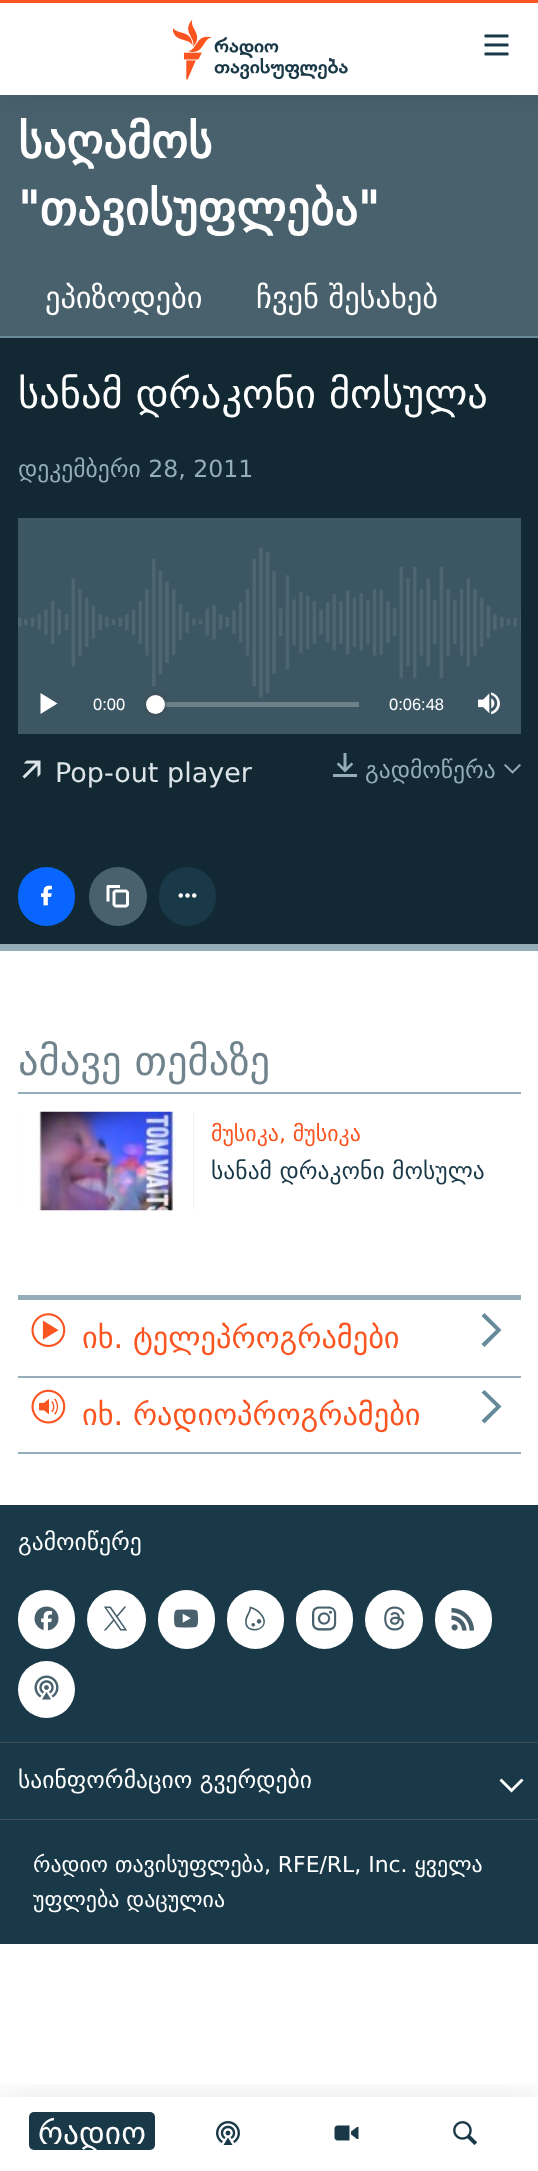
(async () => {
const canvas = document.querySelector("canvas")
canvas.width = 538
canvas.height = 2171
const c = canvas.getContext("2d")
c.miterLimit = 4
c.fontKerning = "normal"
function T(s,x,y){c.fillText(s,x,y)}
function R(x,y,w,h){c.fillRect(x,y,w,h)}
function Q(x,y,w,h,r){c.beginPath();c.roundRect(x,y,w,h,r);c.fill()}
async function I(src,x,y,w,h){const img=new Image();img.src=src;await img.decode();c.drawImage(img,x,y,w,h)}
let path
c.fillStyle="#fff"
R(0,0,538,2171)
c.fillStyle="#48616d"
R(0,95,538,241)
c.font="bold 46.75px DejaVu Sans"
c.fillStyle="#fff"
T("საღამოს",18,158)
T("\"თავისუფლება\"",18,225)
c.font="30.4px DejaVu Sans"
T("ეპიზოდები",45,308)
T("ჩვენ შესახებ",256,308)
c.fillStyle="#122832"
R(0,338,538,606)
c.fillStyle="#678a9b"
R(0,336,538,2)
c.fillStyle="#95adb9"
R(0,944,538,7)
c.font="40.5px DejaVu Sans"
c.fillStyle="#fff"
T("სანამ დრაკონი მოსულა",18,408)
c.font="23.6px DejaVu Sans"
c.fillStyle="#95adb9"
T("დეკემბერი 28, 2011",18,477)
c.fillStyle="#3c5763"
R(18,518,503,216)
await I("1.png",18,547,503,151)
c.fillStyle="#fff"
path = new Path2D("M40.5 714l17-10.5l-17-10.5z")
c.fill(path)
c.font="16.5px Liberation Sans"
T("0:00",93,710)
c.fillStyle="#6d818a"
R(164,702,195,5)
c.fillStyle="#414144"
c.filter="blur(2px)"
c.beginPath()
c.roundRect(146,695,19,19,9.5)
c.fill()
c.filter="none"
c.fillStyle="#fff"
c.beginPath()
c.arc(155.5,704.5,9.5,0,7)
c.fill()
T("0:06:48",389,710)
await I("2.png",478,692,22,23)
await I("3.png",22,760,19,19)
c.font="27px DejaVu Sans"
c.fillStyle="#dce4e8"
T("Pop-out player",55,782)
await I("4.png",333,753,24,24)
c.font="23.6px DejaVu Sans"
c.fillStyle="#95adb9"
T("გადმოწერა",365,778)
await I("5.png",504,764,17,10)
c.fillStyle="#0866ff"
Q(18,867,57,59,28.5)
await I("6.png",41,885,11,21)
c.fillStyle="#48616d"
Q(89,867,58,59,29)
await I("7.png",106,885,23,23)
c.fillStyle="#1a3948"
Q(159,867,57,59,28.5)
await I("8.png",178,893,19,5)
c.fillStyle="#95adb9"
R(18,1092,503,2)
c.font="40.5px DejaVu Sans"
c.fillStyle="#71838d"
T("ამავე თემაზე",18,1075)
c.fillStyle="#edeff0"
R(193,1112,1,97)
await I("9.png",18,1111,176,100)
c.font="21.9px DejaVu Sans"
c.fillStyle="#fa5420"
T("მუსიკა, მუსიკა",211,1141)
c.font="23.6px DejaVu Sans"
c.fillStyle="#1a3948"
T("სანამ დრაკონი მოსულა",211,1179)
c.fillStyle="#95adb9"
R(18,1295,503,5)
R(18,1376,503,2)
await I("10.png",31,1313,35,34)
c.font="30.4px DejaVu Sans"
c.fillStyle="#fa5420"
T("იხ. ტელეპროგრამები",82,1348)
c.fillStyle="#678a9b"
path = new Path2D("M484.5 1347l17-17l-17-17l-3 3l14.5 14l-14.5 14z")
c.fill(path)
c.fillStyle="#95adb9"
R(18,1452,503,2)
await I("11.png",31,1389,35,35)
c.fillStyle="#fa5420"
T("იხ. რადიოპროგრამები",82,1425)
c.fillStyle="#678a9b"
path = new Path2D("M484.5 1423.5l17-17l-17-16.5l-3 2.5l14.5 14l-14.5 14z")
c.fill(path)
c.fillStyle="#1a3948"
R(0,1505,538,439)
c.fillStyle="#3e4f57"
R(0,1819,538,1)
c.font="23.6px DejaVu Sans"
c.fillStyle="#fff"
T("გამოიწერე",18,1550)
Q(18,1590,57,59,28.5)
await I("12.png",34,1606,25,25)
c.beginPath()
c.arc(116.5,1619.5,29.5,0,7)
c.fill()
await I("13.png",103,1606,25,25)
Q(158,1590,57,59,28.5)
await I("14.png",174,1609,24,19)
Q(227,1590,57,59,28.5)
await I("15.png",245,1606,20,25)
Q(296,1590,57,59,28.5)
await I("16.png",312,1606,25,25)
Q(365,1590,58,59,29)
await I("17.png",384,1606,21,25)
Q(435,1590,57,59,28.5)
await I("18.png",451,1608,23,23)
c.beginPath()
c.arc(46.5,1689.5,28.5,0,7)
c.fill()
await I("19.png",34,1675,25,25)
c.fillStyle="#3e4f57"
R(0,1742,538,1)
c.fillStyle="#fff"
T("საინფორმაციო გვერდები",18,1788)
path = new Path2D("M499.5 1780.5l12 12l12-12l-2-2l-10 10l-10-10z")
c.fill(path)
c.font="21.9px DejaVu Sans"
T("რადიო თავისუფლება, RFE/RL, Inc. ყველა",33,1872)
T("უფლება დაცულია",33,1907)
c.fillStyle="#0000001a"
c.filter="blur(15px)"
c.beginPath()
c.rect(0,0,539,95)
c.fill()
c.filter="none"
c.fillStyle="#fff"
R(0,3,538,92)
c.fillStyle="#fa5420"
R(0,0,538,3)
await I("20.png",173,20,175,60)
await I("21.png",484,34,25,22)
c.save()
c.beginPath()
c.rect(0,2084,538,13)
c.clip()
c.fillStyle="#0000001a"
c.filter="blur(15px)"
c.beginPath()
c.rect(0,2097,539,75)
c.fill()
c.filter="none"
c.restore()
c.fillStyle="#1a3948"
Q(29,2112,126,38,5)
c.font="31.5px DejaVu Sans"
c.fillStyle="#fff"
T("რადიო",38,2144)
await I("22.png",216,2121,24,24)
await I("23.png",334,2125,25,16)
await I("24.png",453,2121,24,24)
})()
